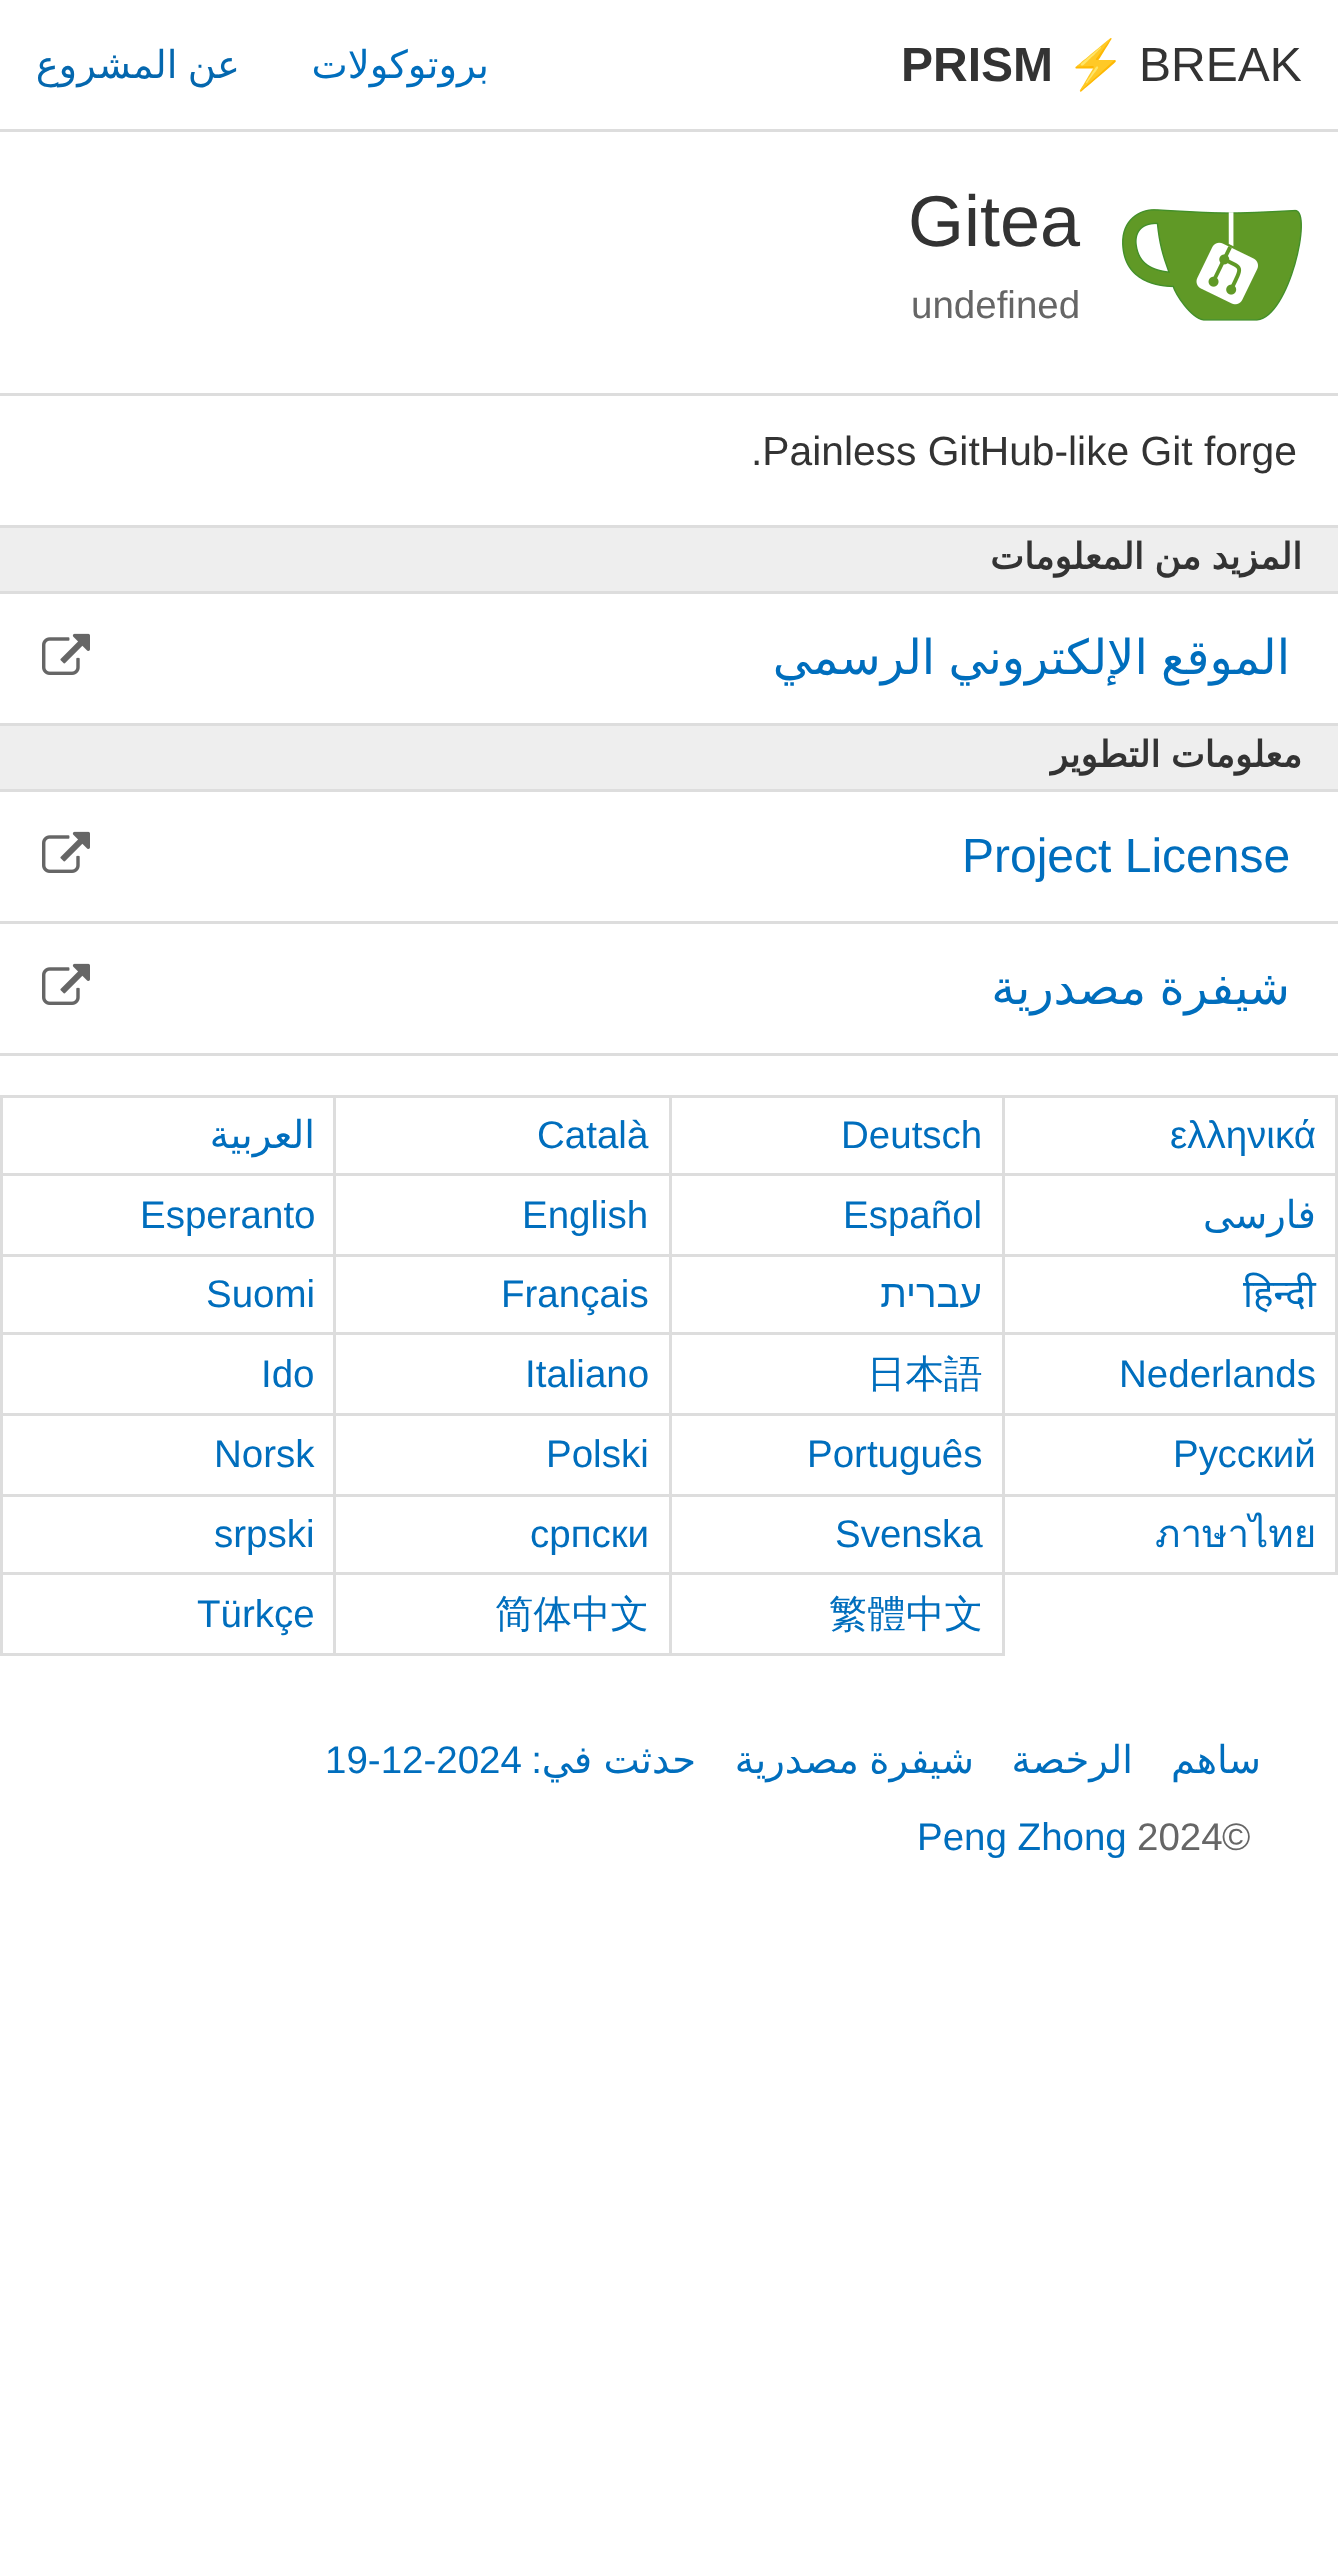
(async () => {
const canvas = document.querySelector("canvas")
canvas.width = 1338
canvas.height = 2574
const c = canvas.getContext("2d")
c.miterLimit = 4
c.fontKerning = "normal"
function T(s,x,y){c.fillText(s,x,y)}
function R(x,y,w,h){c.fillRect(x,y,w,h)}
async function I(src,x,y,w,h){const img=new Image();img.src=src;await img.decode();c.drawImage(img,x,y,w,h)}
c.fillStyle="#fff"
R(0,0,1338,2574)
c.fillStyle="#ddd"
R(0,129,1338,3)
c.wordSpacing="-2px"
c.direction="rtl"
c.font="38.5px DejaVu Sans"
c.fillStyle="#0467ae"
T("عن المشروع",240,78)
c.wordSpacing="0px"
c.fillStyle="#006ebd"
T("بروتوكولات",489,78)
c.direction="ltr"
c.font="bold 48px Liberation Sans"
c.fillStyle="#333"
T("PRISM",901,81)
c.font="48px Noto Color Emoji"
c.fillStyle="#999"
T("⚡",1066,81)
c.font="48px Liberation Sans"
c.fillStyle="#333"
T("BREAK",1139,81)
c.fillStyle="#ddd"
R(0,393,1338,3)
c.font="72px Liberation Sans"
c.fillStyle="#333"
T("Gitea",908,246)
await I("1.png",1122,209,180,112)
c.font="38.5px Liberation Sans"
c.fillStyle="#666"
T("undefined",911,318)
c.fillStyle="#ddd"
R(0,525,1338,3)
c.font="40.75px Liberation Sans"
c.fillStyle="#333"
T(".Painless GitHub-like Git forge",751,465)
c.fillStyle="#eee"
R(0,528,1338,63)
c.fillStyle="#ddd"
R(0,591,1338,3)
c.wordSpacing="-1px"
c.direction="rtl"
c.font="bold 36px DejaVu Sans"
c.fillStyle="#333"
T("المزيد من المعلومات",1302,569)
c.fillStyle="#ddd"
R(0,723,1338,3)
await I("2.png",42,633,48,42)
c.wordSpacing="-2px"
c.font="48px DejaVu Sans"
c.fillStyle="#006ebd"
T("الموقع اﻹلكتروني الرسمي",1290,674)
c.fillStyle="#eee"
R(0,726,1338,63)
c.fillStyle="#ddd"
R(0,789,1338,3)
c.wordSpacing="-1px"
c.font="bold 36px DejaVu Sans"
c.fillStyle="#333"
T("معلومات التطوير",1302,767)
c.fillStyle="#ddd"
R(0,921,1338,3)
await I("2.png",42,831,48,42)
c.wordSpacing="0px"
c.direction="ltr"
c.font="48px Liberation Sans"
c.fillStyle="#006ebd"
T("Project License",962,872)
c.fillStyle="#ddd"
R(0,1053,1338,3)
await I("2.png",42,963,48,42)
c.wordSpacing="-2px"
c.direction="rtl"
c.font="48px DejaVu Sans"
c.fillStyle="#006ebd"
T("شيفرة مصدرية",1290,1004)
c.fillStyle="#ddd"
R(0,1095,1338,3)
R(0,1095,3,561)
R(333,1098,3,558)
R(3,1173,333,3)
c.wordSpacing="0px"
c.font="38.5px DejaVu Sans"
c.fillStyle="#006ebd"
T("العربية",315,1148)
c.fillStyle="#ddd"
R(669,1098,3,558)
R(336,1173,336,3)
c.direction="ltr"
c.font="38.5px Liberation Sans"
c.fillStyle="#006ebd"
T("Català",537,1148)
c.fillStyle="#ddd"
R(1002,1098,3,558)
R(672,1173,333,3)
c.fillStyle="#006ebd"
T("Deutsch",841,1148)
c.fillStyle="#ddd"
R(1335,1098,3,477)
R(1005,1173,333,3)
c.fillStyle="#006ebd"
T("ελληνικά",1170,1148)
c.fillStyle="#ddd"
R(3,1254,1335,3)
c.fillStyle="#006ebd"
T("Esperanto",140,1228)
T("English",522,1228)
T("Español",843,1228)
c.direction="rtl"
c.font="38.5px DejaVu Sans"
T("فارسی",1316,1228)
c.fillStyle="#ddd"
R(3,1332,1335,3)
c.direction="ltr"
c.font="38.5px Liberation Sans"
c.fillStyle="#006ebd"
T("Suomi",206,1307)
T("Français",501,1307)
c.direction="rtl"
T("עברית",982,1307)
c.direction="ltr"
c.font="38.5px Noto Sans"
T("हिन्दी",1243,1307)
c.fillStyle="#ddd"
R(3,1413,1335,3)
c.font="38.5px Liberation Sans"
c.fillStyle="#006ebd"
T("Ido",261,1387)
T("Italiano",525,1387)
c.font="500 38.5px WenQuanYi Zen Hei"
T("日本語",867,1387)
c.font="38.5px Liberation Sans"
T("Nederlands",1119,1387)
c.fillStyle="#ddd"
R(3,1494,1335,3)
c.fillStyle="#006ebd"
T("Norsk",214,1467)
T("Polski",546,1467)
T("Português",807,1467)
T("Русский",1173,1467)
c.fillStyle="#ddd"
R(3,1572,1335,3)
c.fillStyle="#006ebd"
T("srpski",214,1547)
T("српски",530,1547)
T("Svenska",835,1547)
c.font="38.5px Loma"
T("ภาษาไทย",1155,1547)
c.fillStyle="#ddd"
R(3,1653,1002,3)
c.font="38.5px Liberation Sans"
c.fillStyle="#006ebd"
T("Türkçe",197,1627)
c.font="500 38.5px WenQuanYi Zen Hei"
T("简体中文",495,1627)
T("繁體中文",829,1627)
c.font="38.5px Liberation Sans"
T("19-12-2024",325,1773)
c.direction="rtl"
T(":",542,1773)
c.wordSpacing="-1px"
c.font="38.5px DejaVu Sans"
T("حدثت في",696,1773)
c.wordSpacing="-2px"
T("شيفرة مصدرية",974,1773)
c.wordSpacing="0px"
T("الرخصة",1133,1773)
T("ساهم",1261,1773)
c.direction="ltr"
c.font="38.5px Liberation Sans"
T("Peng Zhong",917,1850)
c.fillStyle="#666"
T("2024",1137,1850)
T("©",1222,1850)
})()
